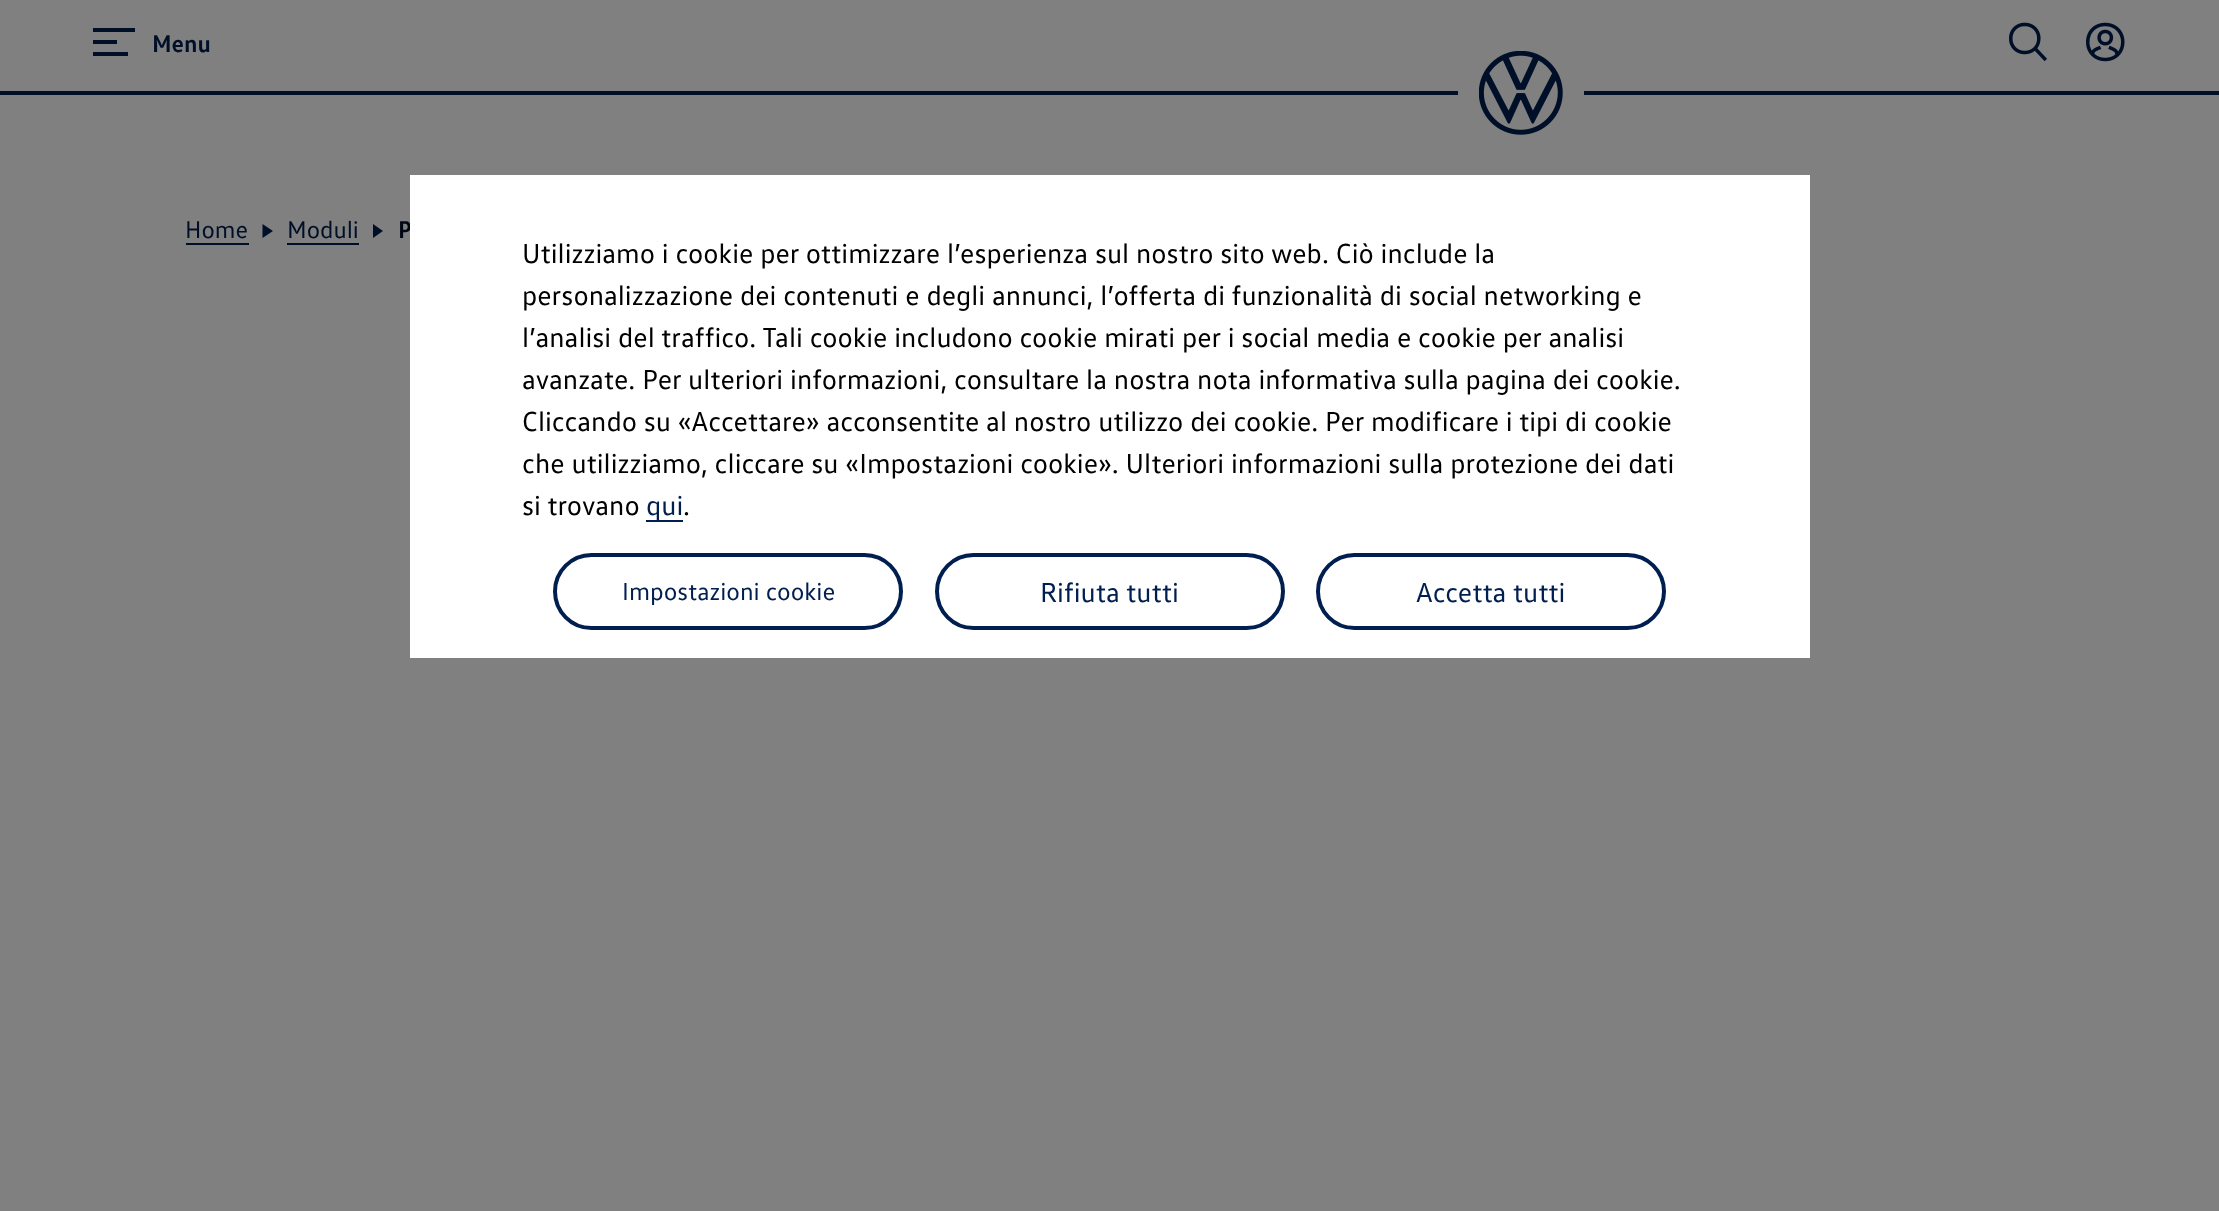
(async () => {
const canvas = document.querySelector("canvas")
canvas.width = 2219
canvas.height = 1211
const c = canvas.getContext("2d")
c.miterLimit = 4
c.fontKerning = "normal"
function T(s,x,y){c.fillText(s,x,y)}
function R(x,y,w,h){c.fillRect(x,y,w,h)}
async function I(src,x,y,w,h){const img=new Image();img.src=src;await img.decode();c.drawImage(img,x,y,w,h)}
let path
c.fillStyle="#808080"
R(0,0,2219,1211)
c.fillStyle="#000f28"
path = new Path2D("M93 28h42v4h-42zm0 12h24v4h-24zm0 12h35v4h-35z")
c.fill(path)
c.font="bold 24.5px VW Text"
T("Menu",152,52)
await I("1.png",2009,22,38,40)
await I("2.png",2086,22,39,40)
R(0,91,1458,4)
await I("3.png",1479,51,84,84)
R(1584,91,635,4)
c.font="24.5px VW Text"
T("Home",185,238)
R(186,243,63,2)
path = new Path2D("M262.5 238v-14l10.5 7z")
c.fill(path)
T("Moduli",287,238)
R(287,243,72,2)
path = new Path2D("M373 238v-14l10 7z")
c.fill(path)
c.font="bold 24.5px VW Text"
c.fillStyle="#000713"
T("P",398,238)
c.fillStyle="#fff"
R(410,175,1400,483)
c.font="28px VW Text"
c.fillStyle="#000"
T("Utilizziamo i cookie per ottimizzare l’esperienza sul nostro sito web. Ciò include la",522,263)
T("personalizzazione dei contenuti e degli annunci, l’offerta di funzionalità di social networking e",522,305)
T("l’analisi del traffico. Tali cookie includono cookie mirati per i social media e cookie per analisi",522,347)
T("avanzate. Per ulteriori informazioni, consultare la nostra nota informativa sulla pagina dei cookie.",522,389)
T("Cliccando su «Accettare» acconsentite al nostro utilizzo dei cookie. Per modificare i tipi di cookie",522,431)
T("che utilizziamo, cliccare su «Impostazioni cookie». Ulteriori informazioni sulla protezione dei dati",522,473)
T("si trovano",522,515)
c.fillStyle="#001e50"
R(646,520,37,2)
T("qui",646,515)
c.fillStyle="#000"
T(".",683,515)
c.beginPath()
c.roundRect(555,555,346,73,36.5)
c.strokeStyle="#001e50"
c.lineWidth=4
c.stroke()
c.font="25px VW Text"
c.fillStyle="#001e50"
T("Impostazioni cookie",622,600)
c.beginPath()
c.roundRect(937,555,346,73,36.5)
c.stroke()
c.font="28px VW Text"
T("Rifiuta tutti",1040,602)
c.beginPath()
c.roundRect(1318,555,346,73,36.5)
c.stroke()
T("Accetta tutti",1416,602)
})()
